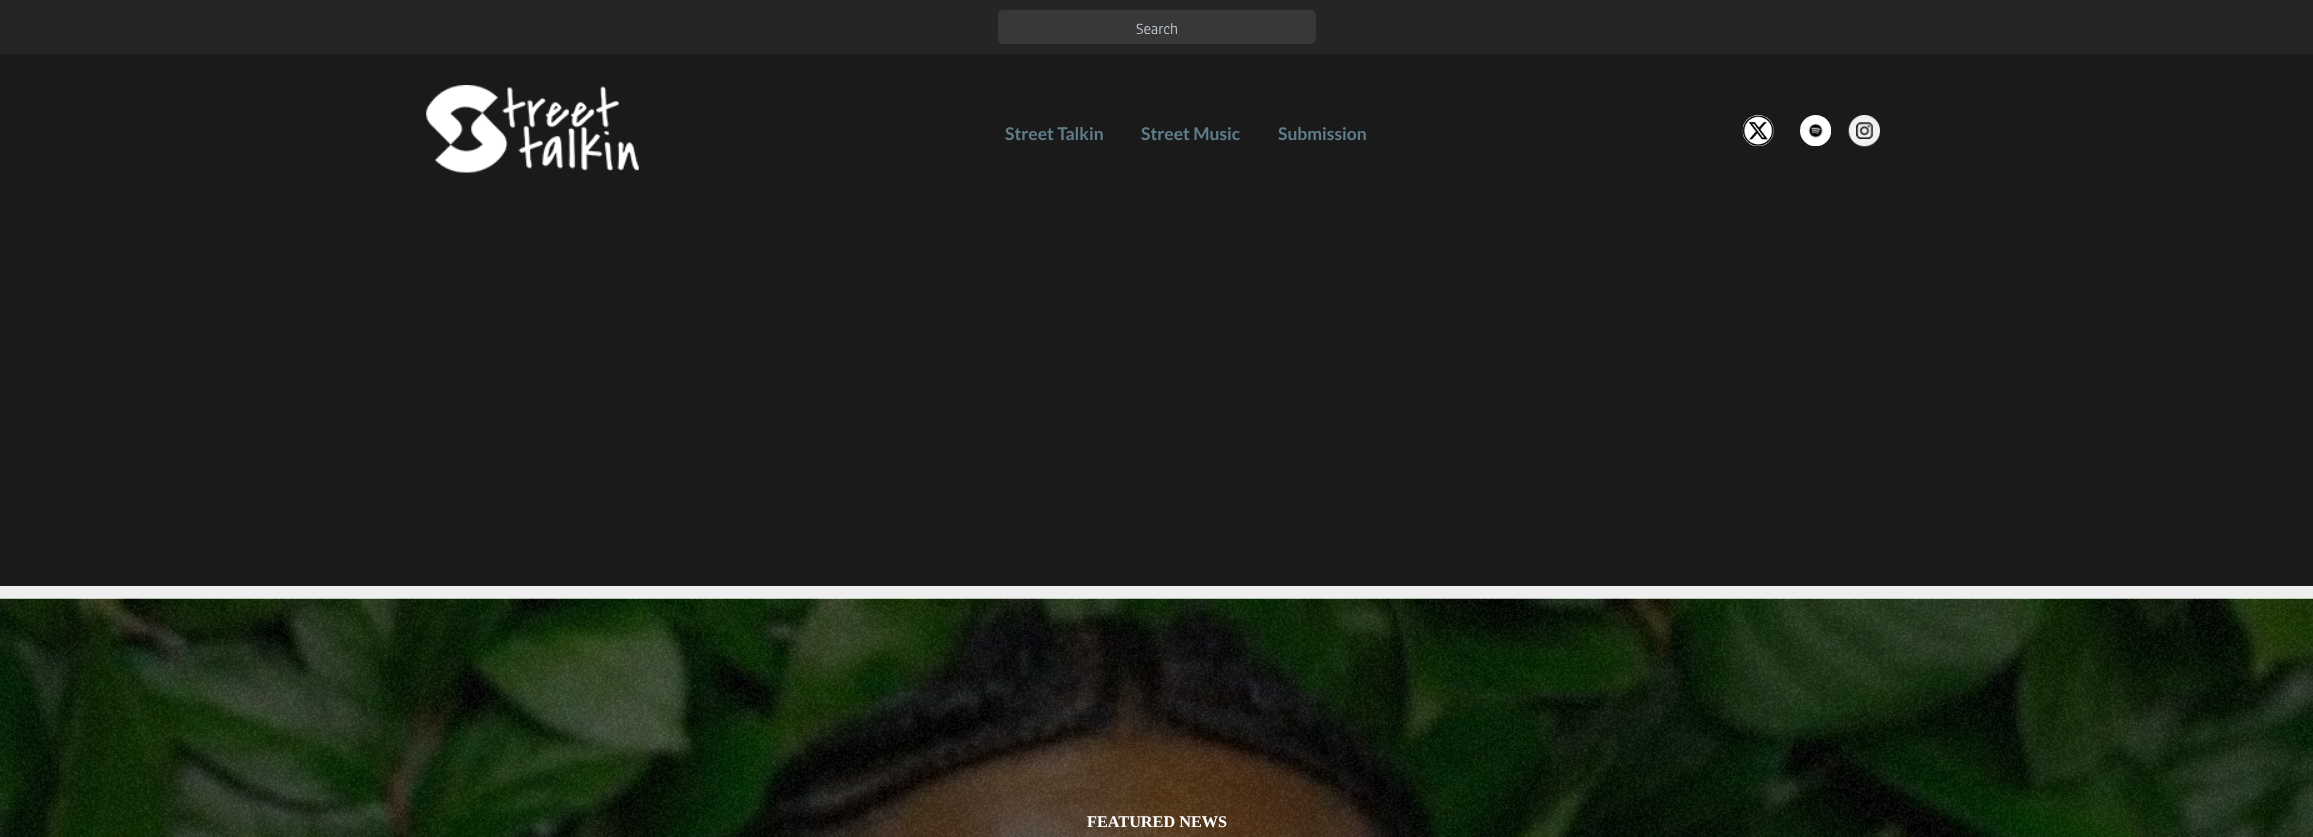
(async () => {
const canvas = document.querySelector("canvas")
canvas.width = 2313
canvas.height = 837
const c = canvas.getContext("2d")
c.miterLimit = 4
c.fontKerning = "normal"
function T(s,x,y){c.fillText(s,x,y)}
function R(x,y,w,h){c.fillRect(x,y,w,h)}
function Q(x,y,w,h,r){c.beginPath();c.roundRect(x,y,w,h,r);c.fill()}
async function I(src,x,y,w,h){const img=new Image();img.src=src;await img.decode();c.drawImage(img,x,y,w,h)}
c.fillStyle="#eee"
R(0,0,2313,837)
c.fillStyle="#252525"
R(0,0,2313,54)
c.fillStyle="#383838"
Q(998,10,318,34,5)
c.font="16.25px Anaheim"
c.fillStyle="#c9d0da"
T("Search",1136,34)
c.fillStyle="#1a1a1a"
R(0,54,2313,532)
await I("1.png",426,85,213,88)
c.font="bold 17.5px Lato"
c.fillStyle="#607d8b"
T("Street Talkin",1005,140)
T("Street Music",1141,140)
T("Submission",1278,140)
await I("2.png",1742,115,32,32)
await I("3.png",1800,115,32,32)
await I("4.png",1848,115,32,32)
await I("5.png",0,598,2313,239)
await I("6.png",0,598,2313,239)
c.font="bold 16.25px Liberation Serif"
c.fillStyle="#fff"
T("FEATURED NEWS",1087,827)
})()
